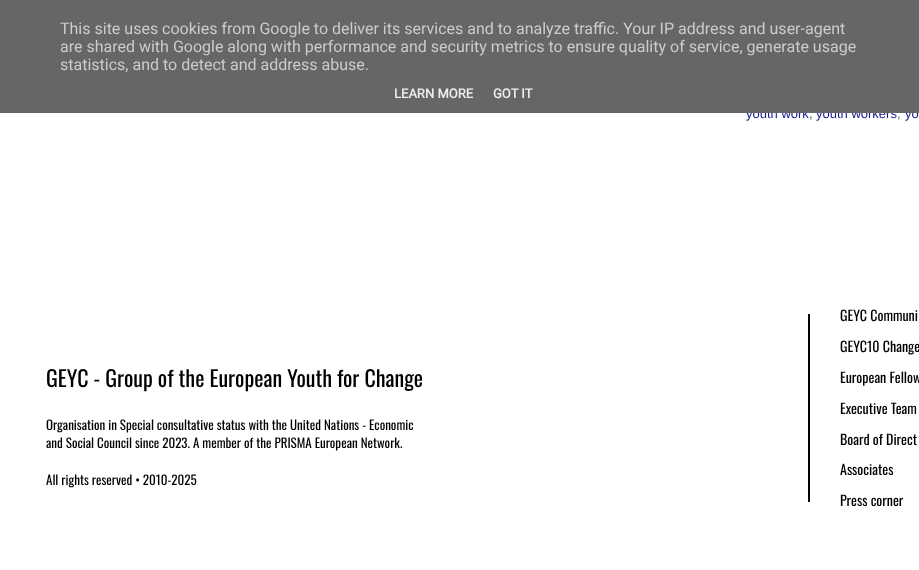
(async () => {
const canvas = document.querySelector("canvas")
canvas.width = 919
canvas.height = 570
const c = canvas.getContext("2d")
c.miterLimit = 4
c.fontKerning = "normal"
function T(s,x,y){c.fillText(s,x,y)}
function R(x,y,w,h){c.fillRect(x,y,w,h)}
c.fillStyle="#fff"
R(0,0,919,570)
c.font="13px Liberation Sans"
c.fillStyle="#151b8d"
T("youth work",746,118)
T("youth workers",816,118)
T("yo",905,118)
c.fillStyle="#666"
R(0,0,919,113)
c.font="16px Roboto"
c.fillStyle="#ccc"
T("This site uses cookies from Google to deliver its services and to analyze traffic. Your IP address and user-agent",60,34)
T("are shared with Google along with performance and security metrics to ensure quality of service, generate usage",60,52)
T("statistics, and to detect and address abuse.",60,70)
c.font="bold 13px Roboto"
c.fillStyle="#eee"
T("LEARN MORE",394,98)
T("GOT IT",493,98)
c.font="13px Liberation Sans"
c.fillStyle="#666"
T(",",809,118)
T(",",897,118)
c.font="22px Oswald"
c.fillStyle="#000"
T("GEYC - Group of the European Youth for Change",46,387)
c.font="13px Oswald"
T("Organisation in Special consultative status with the United Nations - Economic",46,430)
T("and Social Council since 2023. A member of the PRISMA European Network.",46,448)
T("All rights reserved • 2010-2025",46,485)
R(808,314,2,188)
c.font="14px Oswald"
T("GEYC Communi",840,321)
T("GEYC10 Change",840,352)
T("European Fellow",840,383)
T("Executive Team",840,414)
T("Board of Direct",840,445)
T("Associates",840,475)
T("Press corner",840,506)
})()
